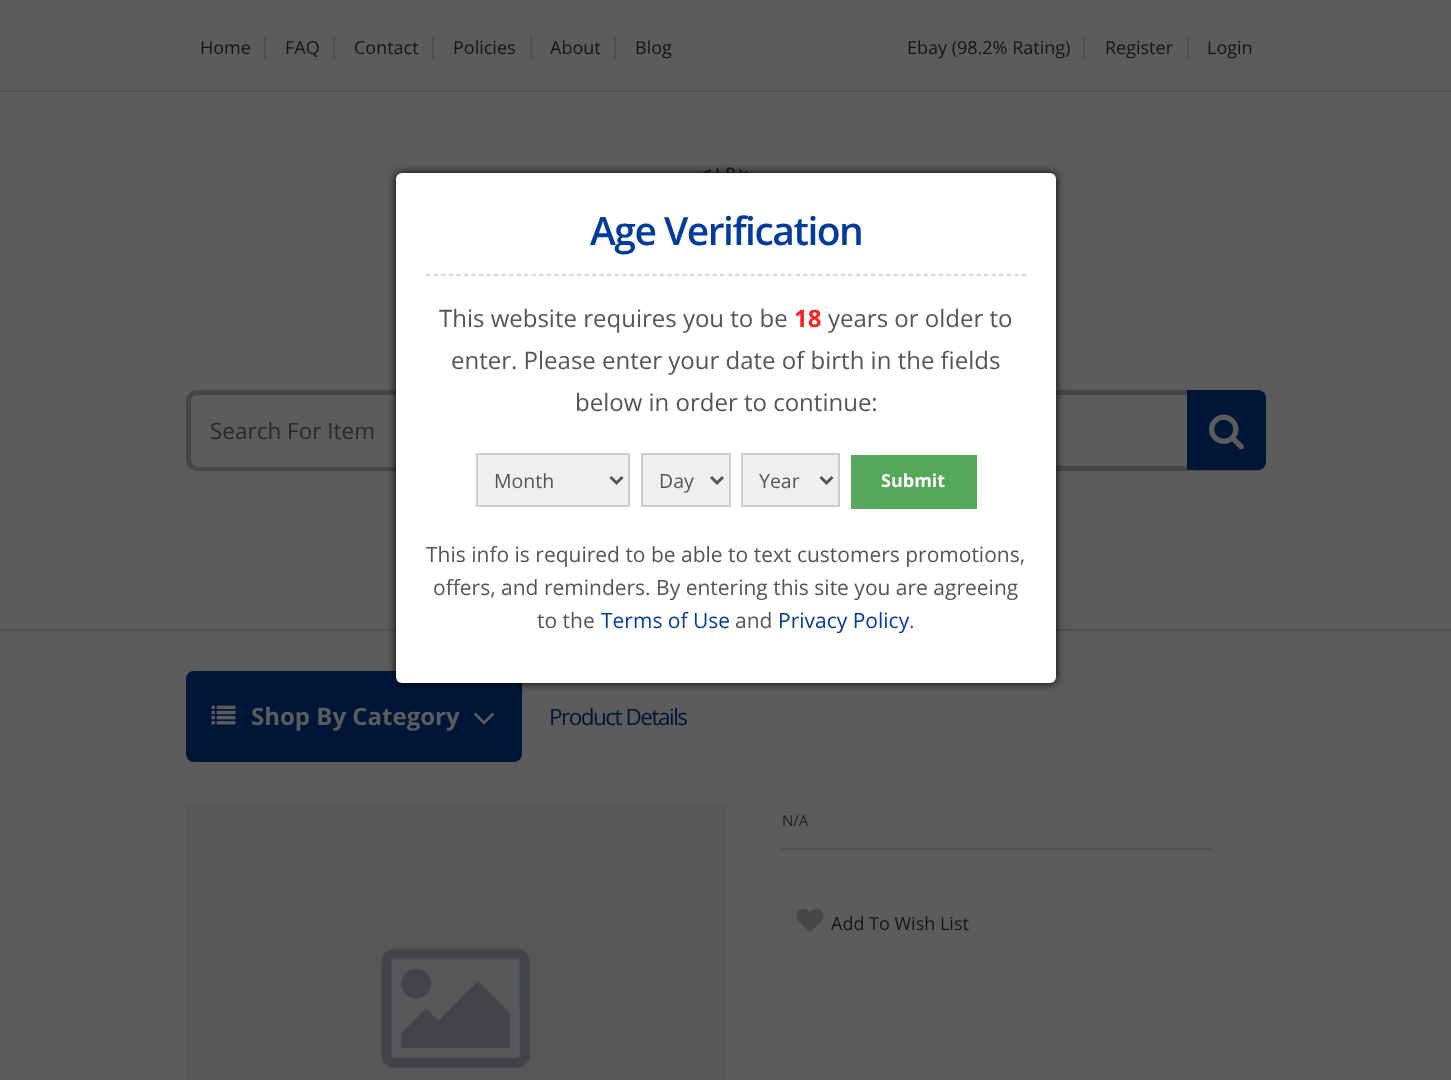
(async () => {
const canvas = document.querySelector("canvas")
canvas.width = 1451
canvas.height = 1080
const c = canvas.getContext("2d")
c.miterLimit = 4
c.fontKerning = "normal"
function T(s,x,y){c.fillText(s,x,y)}
function R(x,y,w,h){c.fillRect(x,y,w,h)}
function Q(x,y,w,h,r){c.beginPath();c.roundRect(x,y,w,h,r);c.fill()}
async function I(src,x,y,w,h){const img=new Image();img.src=src;await img.decode();c.drawImage(img,x,y,w,h)}
let path
c.fillStyle="#5c5c5c"
R(0,0,1451,1080)
c.fillStyle="#515151"
R(0,90,1451,2)
R(264,36,2,23)
c.font="18px Open Sans"
c.fillStyle="#161616"
T("Home",200,54)
c.fillStyle="#515151"
R(333,36,2,23)
c.fillStyle="#161616"
T("FAQ",285,54)
c.fillStyle="#515151"
R(432,36,2,23)
c.fillStyle="#161616"
T("Contact",354,54)
c.fillStyle="#515151"
R(530,36,2,23)
c.fillStyle="#161616"
T("Policies",453,54)
c.fillStyle="#515151"
R(614,36,2,23)
c.fillStyle="#161616"
T("About",550,54)
T("Blog",635,54)
c.fillStyle="#515151"
R(1083,36,2,23)
c.fillStyle="#161616"
T("Ebay (98.2% Rating)",907,54)
c.fillStyle="#515151"
R(1187,36,2,23)
c.fillStyle="#161616"
T("Register",1105,54)
T("Login",1207,54)
c.fillStyle="#515151"
R(0,629,1451,2)
await I("1.png",671,167,110,6)
c.beginPath()
c.roundRect(188.5,392.5,1075,76,8.5)
c.strokeStyle="#474747"
c.lineWidth=5
c.stroke()
c.fillStyle="#5c5c5c"
c.beginPath()
c.roundRect(191,395,621,72,[8,0,0,8])
c.fill()
c.font="22.5px Open Sans"
c.fillStyle="#2a2a2a"
T("Search For Item",210,439)
c.fillStyle="#001639"
c.beginPath()
c.roundRect(1187,390,79,80,[0,8,8,0])
c.fill()
await I("2.png",1209,414,35,36)
Q(186,671,336,91,8)
await I("3.png",211,705,25,20)
c.font="bold 24px Open Sans"
c.fillStyle="#5c5c5c"
T("Shop By Category",251,725)
await I("4.png",474,712,21,13)
c.letterSpacing="-1.5px"
c.font="22.5px Open Sans"
c.fillStyle="#001639"
T("Product Details",549,725)
await I("5.png",186,804,540,276)
c.fillStyle="#515151"
R(782,848,429,2)
c.letterSpacing="0px"
c.font="15px Open Sans"
c.fillStyle="#212121"
T("N/A",782,826)
await I("6.png",796,908,28,24)
c.font="18px Open Sans"
c.fillStyle="#161616"
T("Add To Wish List",831,930)
c.fillStyle="#000"
c.filter="blur(4px)"
c.beginPath()
c.roundRect(396,173,660,510,6)
c.fill()
c.filter="none"
c.fillStyle="#fff"
Q(396,173,660,510,6)
path = new Path2D("M426 275h600")
c.strokeStyle="#ccc"
c.lineWidth=1.5
c.setLineDash([4.5,3.04])
c.stroke(path)
c.letterSpacing="-1.5px"
c.font="600 39px Open Sans"
c.fillStyle="#013c9d"
T("Age Verification",590,245)
c.letterSpacing="0px"
c.font="24px Open Sans"
c.fillStyle="#555"
T("This website requires you to be",439,327)
c.font="bold 24px Open Sans"
c.fillStyle="#ff1f1f"
T("18",794,327)
c.font="24px Open Sans"
c.fillStyle="#555"
T("years or older to",828,327)
T("enter. Please enter your date of birth in the fields",451,369)
T("below in order to continue:",575,411)
c.fillStyle="#efefef"
c.beginPath()
c.rect(477,454,152,52)
c.fill()
c.lineWidth=2
c.setLineDash([])
c.stroke()
path = new Path2D("M610.5 477l6 6l6-6")
c.strokeStyle="#555"
c.lineWidth=3
c.stroke(path)
c.font="19.5px Open Sans"
c.fillStyle="#555"
T("Month",494,488)
c.fillStyle="#efefef"
c.beginPath()
c.rect(642,454,88,52)
c.fill()
c.strokeStyle="#ccc"
c.lineWidth=2
c.stroke()
path = new Path2D("M711 477l6 6l6-6")
c.strokeStyle="#555"
c.lineWidth=3
c.stroke(path)
c.fillStyle="#555"
T("Day",659,488)
c.fillStyle="#efefef"
c.beginPath()
c.rect(742,454,97,52)
c.fill()
c.strokeStyle="#ccc"
c.lineWidth=2
c.stroke()
path = new Path2D("M820.5 477l6 6l6-6")
c.strokeStyle="#555"
c.lineWidth=3
c.stroke(path)
c.fillStyle="#555"
T("Year",759,488)
c.fillStyle="#55a85a"
R(851,455,126,54)
c.font="bold 18px Open Sans"
c.fillStyle="#fff"
T("Submit",881,487)
c.font="21px Open Sans"
c.fillStyle="#555"
T("This info is required to be able to text customers promotions,",426,562)
T("offers, and reminders. By entering this site you are agreeing",433,595)
T("to the",537,628)
c.fillStyle="#013c9d"
T("Terms of Use",601,628)
c.fillStyle="#555"
T("and",735,628)
c.fillStyle="#013c9d"
T("Privacy Policy",778,628)
c.fillStyle="#555"
T(".",909,628)
})()
